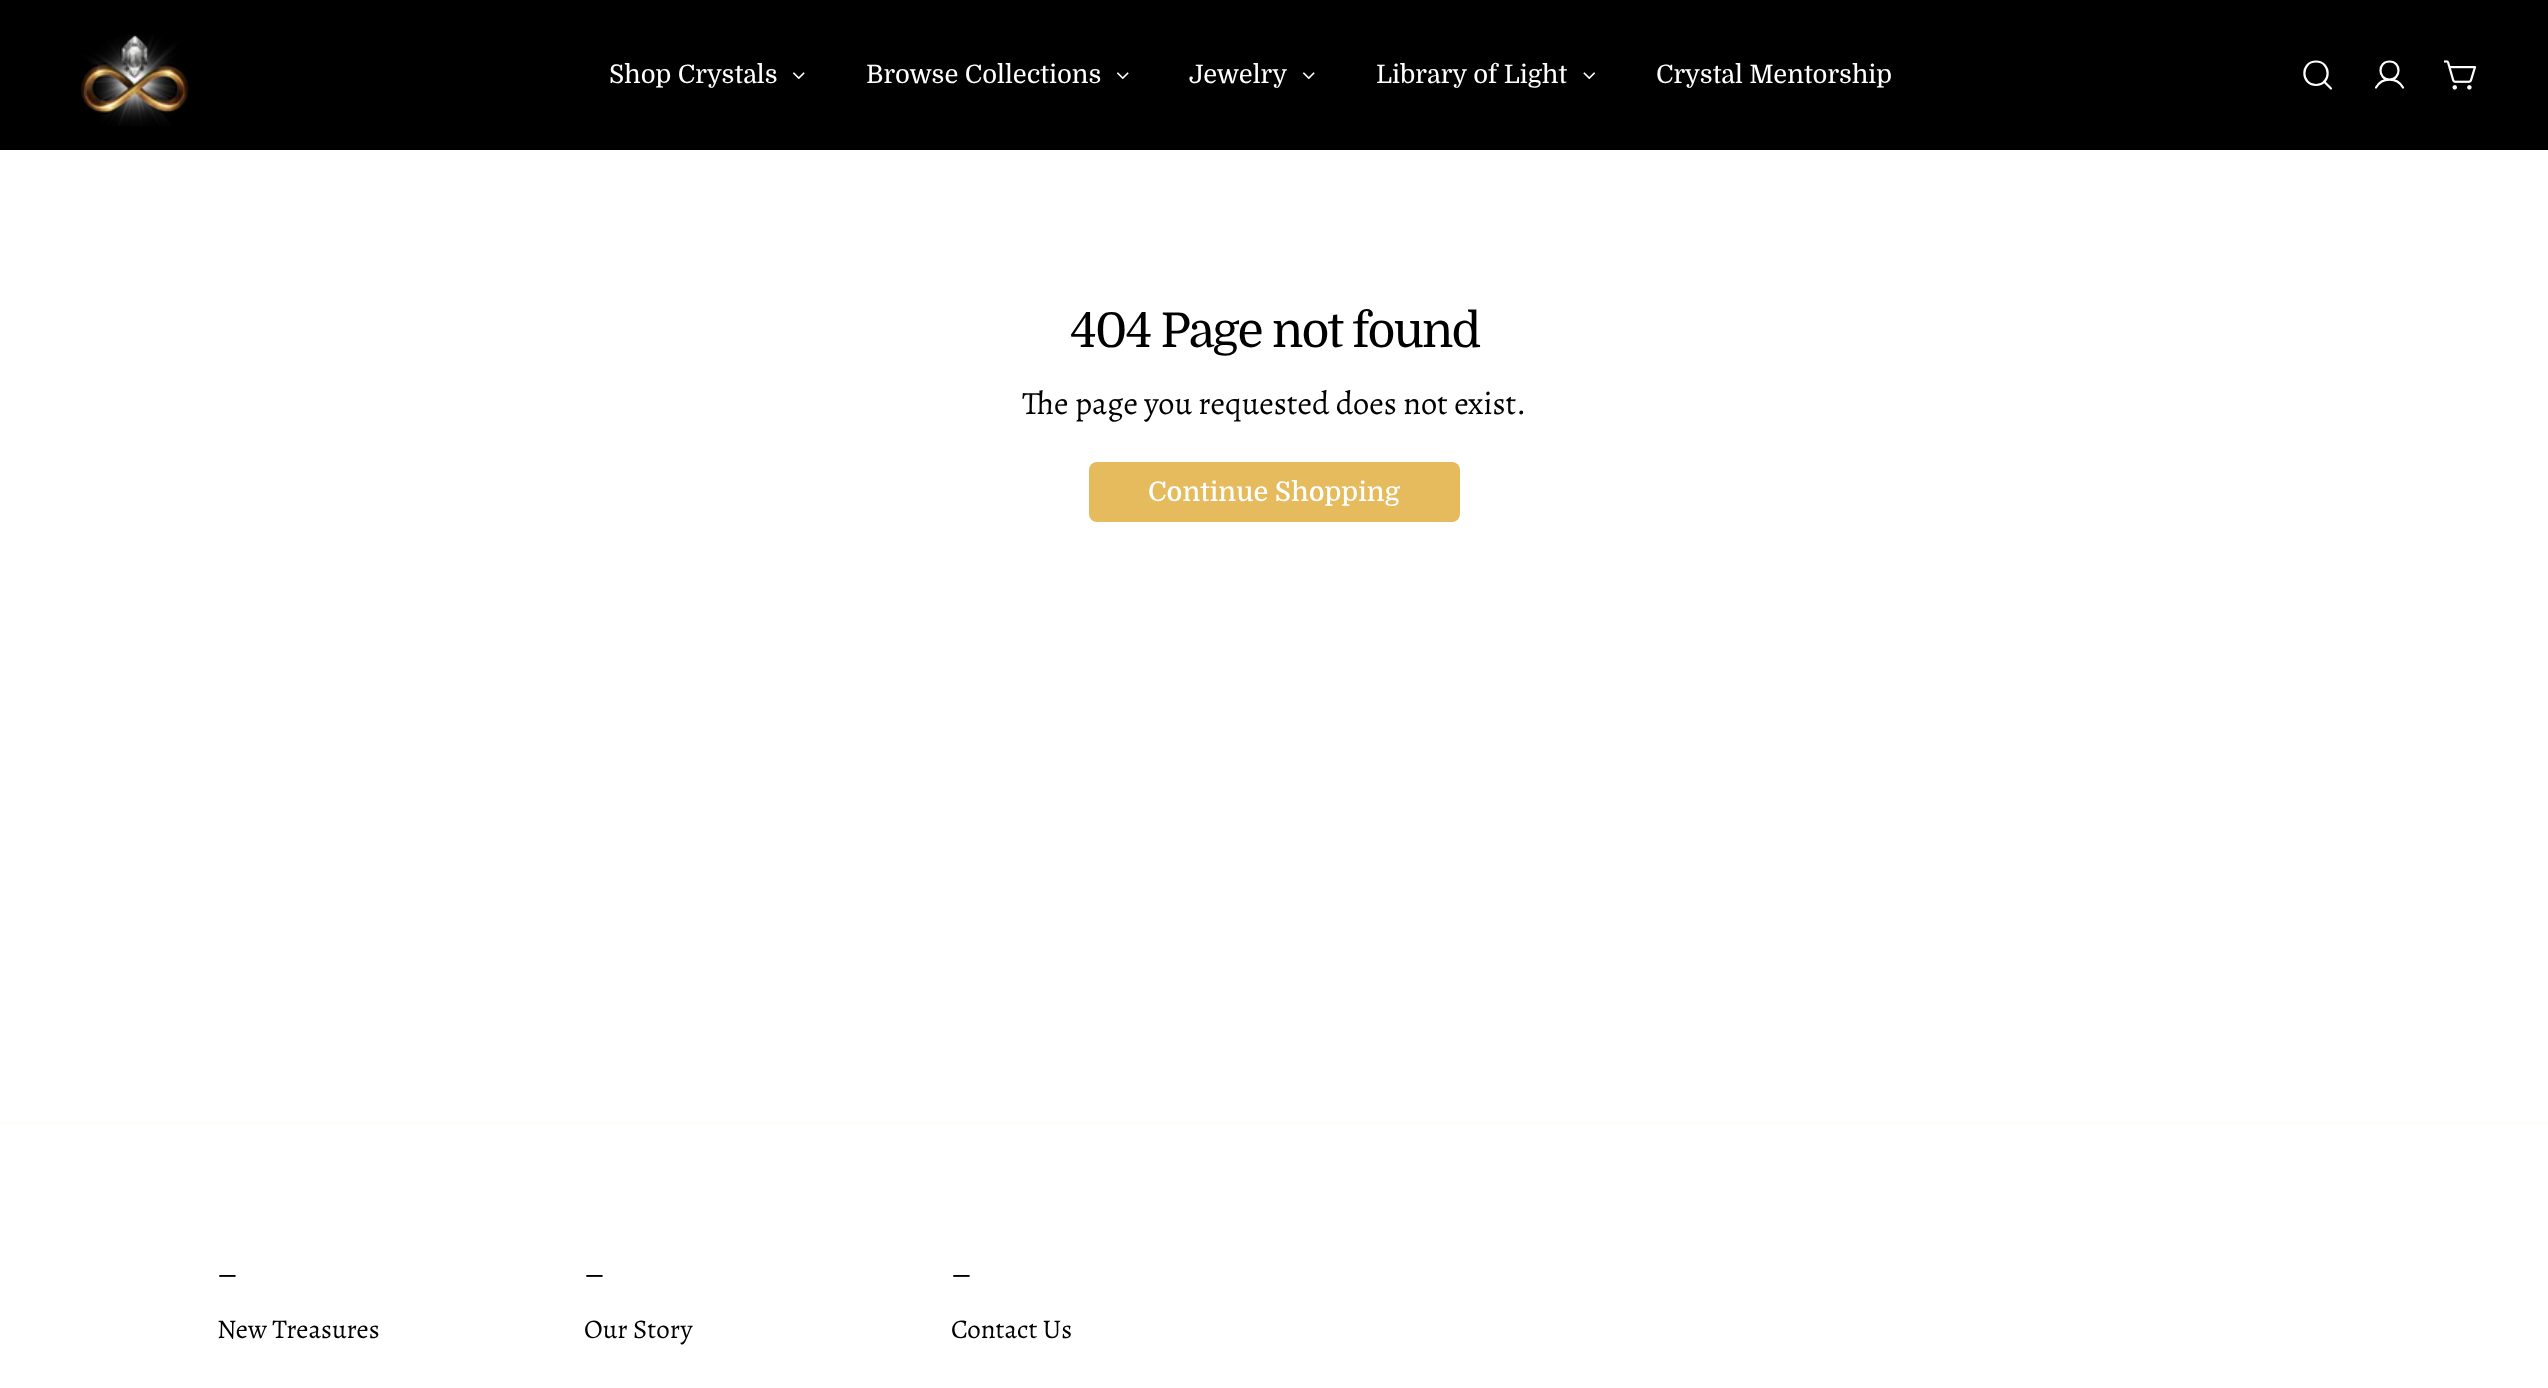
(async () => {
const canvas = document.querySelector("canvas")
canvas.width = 2548
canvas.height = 1388
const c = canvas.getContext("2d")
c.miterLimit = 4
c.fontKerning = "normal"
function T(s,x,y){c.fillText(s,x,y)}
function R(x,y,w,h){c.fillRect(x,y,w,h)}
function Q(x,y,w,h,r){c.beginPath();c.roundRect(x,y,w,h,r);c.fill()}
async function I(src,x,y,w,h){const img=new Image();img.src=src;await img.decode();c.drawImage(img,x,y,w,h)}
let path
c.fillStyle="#fff"
R(0,0,2548,1388)
c.fillStyle="#000"
R(0,0,2548,150)
await I("1.png",81,35,108,91)
c.font="25.5px Domine"
c.fillStyle="#fff"
T("Shop Crystals",609,83)
await I("2.png",793,72,12,8)
T("Browse Collections",866,83)
await I("2.png",1117,72,12,8)
T("Jewelry",1189,83)
await I("2.png",1303,72,12,8)
T("Library of Light",1376,83)
await I("3.png",1583,72,12,8)
T("Crystal Mentorship",1656,83)
path = new Path2D("M2316 85c15.5 0 15.5-23.5 0-23.5c-15.5 0-15.5 23.5 0 23.5zm8-3.5l7 7")
c.strokeStyle="#fff"
c.lineWidth=2.2
c.lineCap="round"
c.lineJoin="round"
c.stroke(path)
path = new Path2D("M2389.5 79.5c12 0 12-18 0-18c-12 0-12 18 0 18zm-13.5 8c6-10.5 21-10.5 27 0")
c.stroke(path)
await I("4.png",2444,60,33,30)
c.letterSpacing="-1.9px"
c.font="48px Domine"
c.fillStyle="#000"
T("404 Page not found",1070,347)
c.letterSpacing="0px"
c.font="32.4px Alegreya"
T("The page you requested does not exist.",1022,414)
c.fillStyle="#e6bb5d"
Q(1089,462,371,60,8)
c.font="500 27px Domine"
c.fillStyle="#fff"
T("Continue Shopping",1148,501)
c.fillStyle="#fffbf5"
R(0,1122,2548,2)
c.letterSpacing="-1px"
c.font="33px Domine"
c.fillStyle="#000"
T("_",217,1275)
c.letterSpacing="0px"
c.font="27px Alegreya"
T("New Treasures",217,1338)
c.letterSpacing="-1px"
c.font="33px Domine"
T("_",584,1275)
c.letterSpacing="0px"
c.font="27px Alegreya"
T("Our Story",584,1338)
c.letterSpacing="-1px"
c.font="33px Domine"
T("_",951,1275)
c.letterSpacing="0px"
c.font="27px Alegreya"
T("Contact Us",951,1338)
})()
